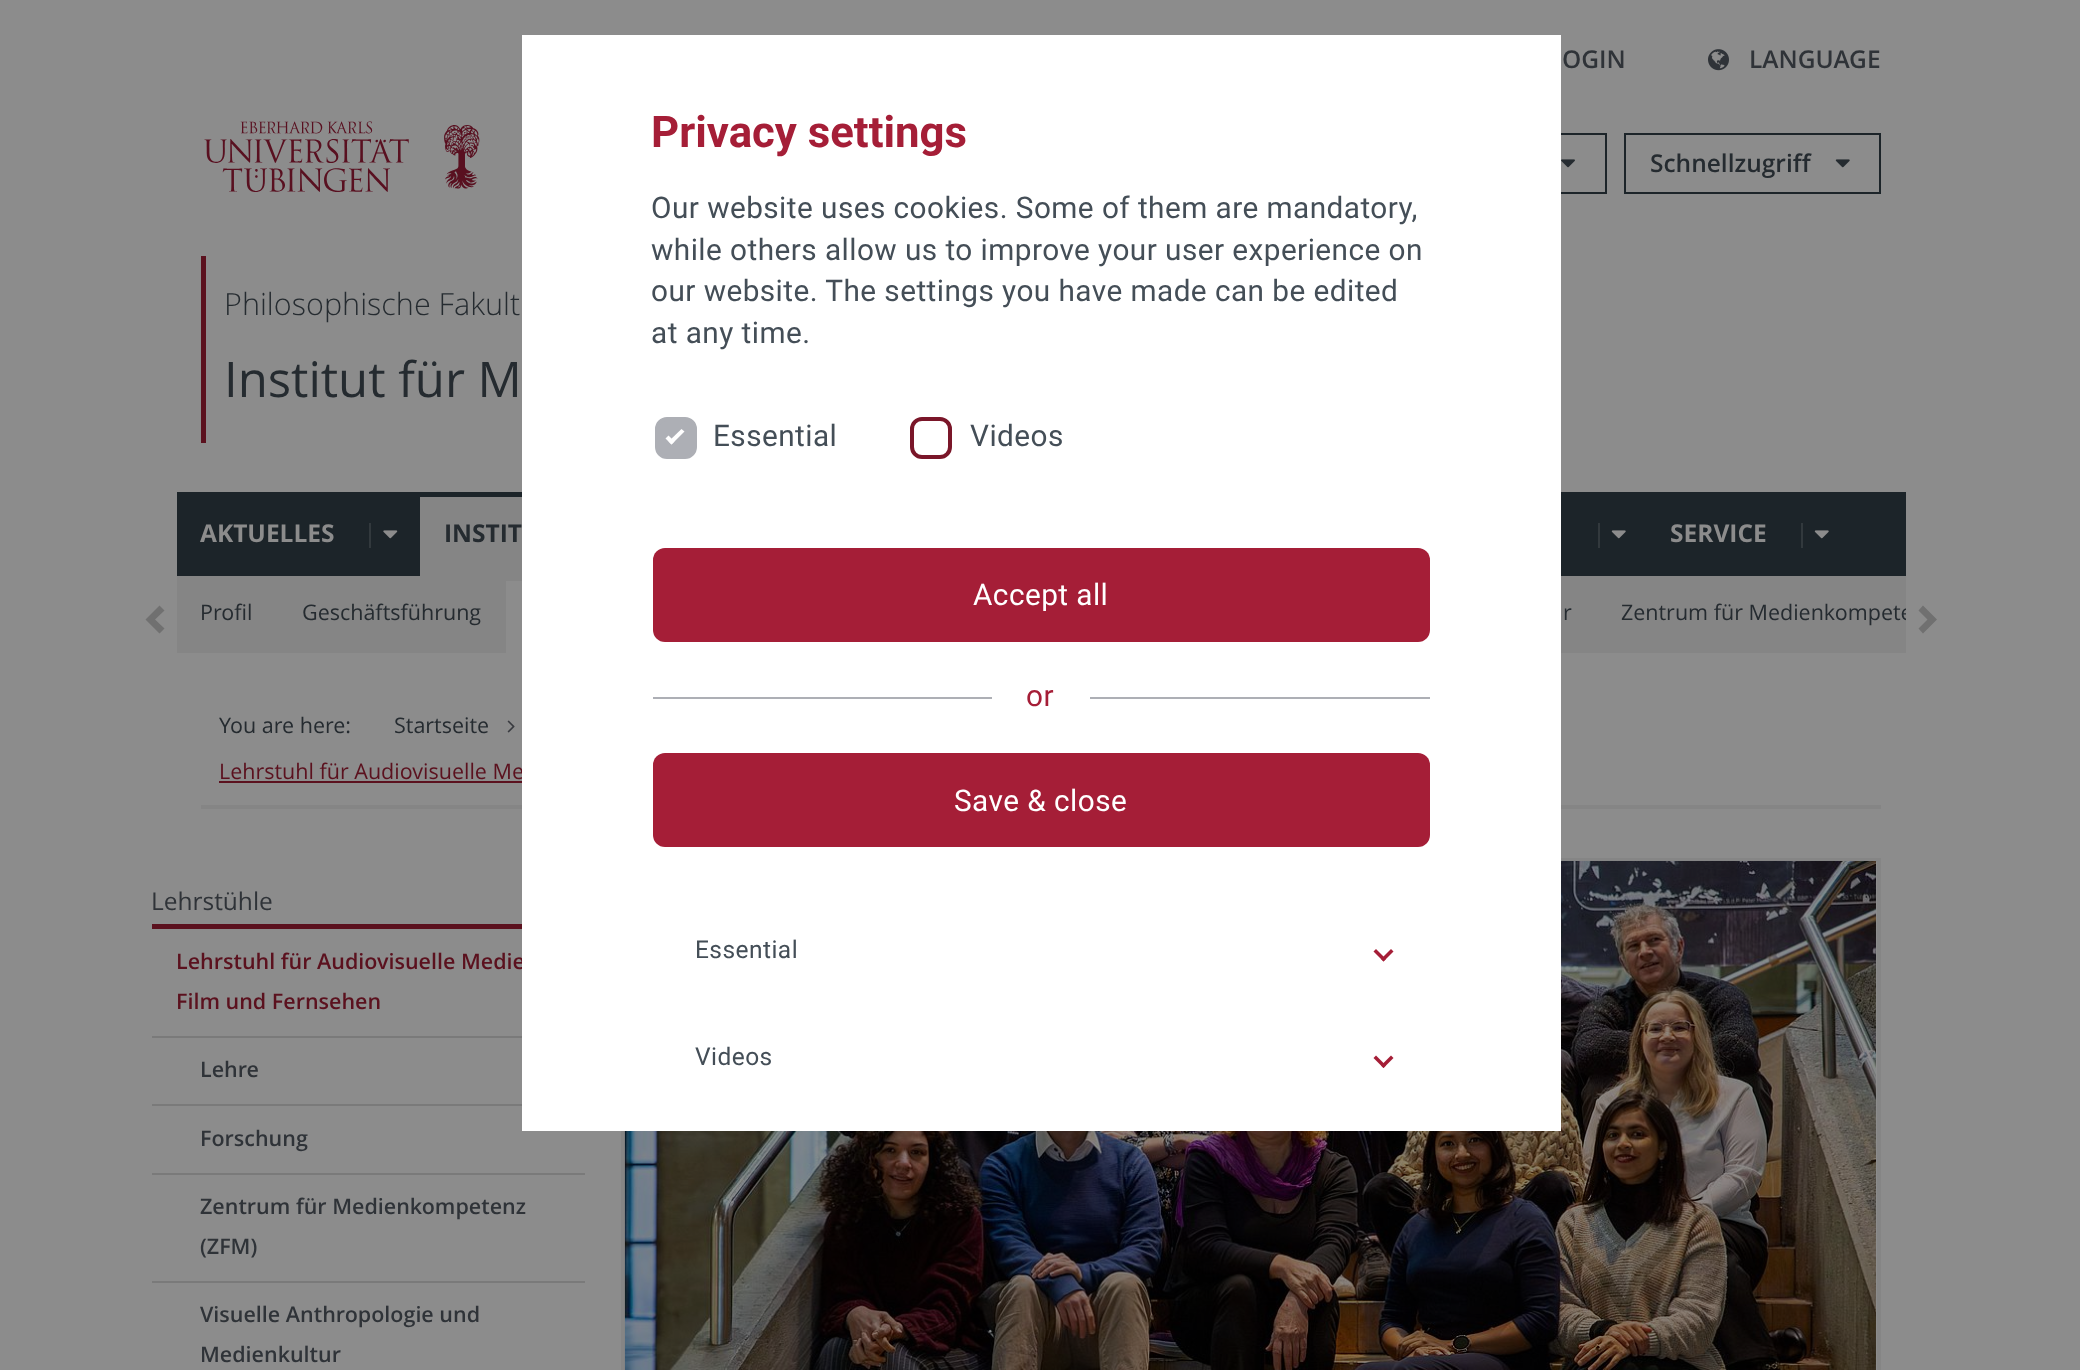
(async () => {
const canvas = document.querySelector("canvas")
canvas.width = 2080
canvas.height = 1370
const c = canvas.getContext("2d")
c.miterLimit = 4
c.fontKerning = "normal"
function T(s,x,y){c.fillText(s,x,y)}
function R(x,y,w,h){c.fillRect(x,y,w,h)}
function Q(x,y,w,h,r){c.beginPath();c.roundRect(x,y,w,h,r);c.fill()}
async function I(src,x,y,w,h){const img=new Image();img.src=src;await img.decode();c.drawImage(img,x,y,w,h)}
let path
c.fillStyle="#8c8c8c"
R(0,0,2080,1370)
c.font="600 24.5px Open Sans"
c.fillStyle="#2f3338"
T("OGIN",1562,68)
await I("1.png",1708,49,21,22)
T("LANGUAGE",1749,68)
await I("2.png",204,121,276,71)
c.strokeStyle="#1c2429"
c.lineWidth=2
c.strokeRect(1298,134,308,59)
await I("3.png",1561,159,14,9)
c.strokeRect(1625,134,255,59)
c.fillStyle="#252b30"
T("Schnellzugriff",1650,172)
await I("4.png",1835,159,15,9)
c.fillStyle="#5b111e"
R(201,256,5,187)
c.font="300 30.6px Open Sans"
c.fillStyle="#252b30"
T("Philosophische Fakult",224,315)
c.font="49px Open Sans"
T("Institut für M",224,397)
c.fillStyle="#1c2429"
R(177,492,1729,84)
c.font="bold 24.5px Open Sans"
c.fillStyle="#8c8c8c"
T("AKTUELLES",200,542)
c.fillStyle="#32393d"
R(369,523,2,25)
await I("5.png",383,530,15,9)
c.fillStyle="#858585"
R(420,497,102,79)
c.fillStyle="#252b30"
T("INSTIT",444,542)
c.fillStyle="#32393d"
R(1598,523,2,25)
await I("6.png",1611,530,15,9)
c.fillStyle="#8c8c8c"
T("SERVICE",1670,542)
c.fillStyle="#32393d"
R(1801,523,2,25)
await I("6.png",1814,530,15,9)
c.fillStyle="#858585"
R(177,576,1729,77)
c.fillStyle="#707070"
path = new Path2D("M159.5 605.5l5 5l-9.5 9l9.5 9l-5 5l-14-14z")
c.fill(path)
c.font="21.5px Open Sans"
c.fillStyle="#252b30"
T("Profil",200,620)
T("Geschäftsführung",302,620)
c.fillStyle="#8c8c8c"
R(506,581,16,72)
c.fillStyle="#252b30"
T("r",1563,620)
c.save()
c.beginPath()
c.rect(177,576,1729,77)
c.clip()
T("Zentrum für Medienkompete",1621,620)
c.restore()
c.fillStyle="#707070"
path = new Path2D("M1923 633.5l-4.5-5l9-9l-9-9l4.5-5l14 14z")
c.fill(path)
c.fillStyle="#858585"
R(201,805,1680,4)
c.fillStyle="#252b30"
T("You are here:",219,733)
T("Startseite",394,733)
await I("7.png",507,720,8,13)
c.fillStyle="#5b111e"
T("Lehrstuhl für Audiovisuelle Me",219,779)
R(219,781,303,2)
R(152,924,370,5)
c.font="24.5px Open Sans"
c.fillStyle="#2f3338"
T("Lehrstühle",151,910)
c.fillStyle="#7a7a7a"
R(152,1036,370,2)
c.font="600 21.5px Open Sans"
c.fillStyle="#5b111e"
T("Lehrstuhl für Audiovisuelle Medie",176,969)
T("Film und Fernsehen",176,1009)
c.fillStyle="#7a7a7a"
R(152,1104,370,2)
c.fillStyle="#2f3338"
T("Lehre",200,1077)
c.fillStyle="#7a7a7a"
R(152,1173,433,2)
c.fillStyle="#2f3338"
T("Forschung",200,1146)
c.fillStyle="#7a7a7a"
R(152,1281,433,2)
c.fillStyle="#2f3338"
T("Zentrum für Medienkompetenz",200,1214)
T("(ZFM)",200,1254)
T("Visuelle Anthropologie und",200,1322)
T("Medienkultur",200,1362)
c.strokeStyle="#858585"
c.lineWidth=4
c.strokeRect(623,860,1256,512)
await I("8.png",624,861,1252,509)
c.fillStyle="#fff"
R(522,35,1039,1096)
c.font="bold 43.75px Roboto"
c.fillStyle="#a51e37"
T("Privacy settings",651,147)
c.letterSpacing="0.45px"
c.font="29.75px Roboto"
c.fillStyle="#444e57"
T("Our website uses cookies. Some of them are mandatory,",651,218)
T("while others allow us to improve your user experience on",651,260)
T("our website. The settings you have made can be edited",651,301)
T("at any time.",651,343)
c.fillStyle="#adafb5"
c.beginPath()
c.roundRect(657,419,38,38,10)
c.fill()
c.strokeStyle="#adafb5"
c.stroke()
c.fillStyle="#444e57"
T("Essential",713,446)
c.fillStyle="#fff"
path = new Path2D("M668.5 441.5l13-12.5l3 2.5l-13 13z")
c.fill(path)
path = new Path2D("M665.5 438.5l3-3l6 6l-3 3z")
c.fill(path)
c.beginPath()
c.roundRect(912,419,38,38,10)
c.strokeStyle="#7a1629"
c.stroke()
c.fillStyle="#444e57"
T("Videos",970,446)
c.fillStyle="#a51e37"
Q(653,548,777,94,12)
c.fillStyle="#fff"
T("Accept all",973,605)
c.fillStyle="#adafb5"
R(653,697,339,2)
c.fillStyle="#a51e37"
T("or",1026,706)
c.fillStyle="#adafb5"
R(1090,697,340,2)
c.fillStyle="#a51e37"
Q(653,753,777,94,12)
c.fillStyle="#fff"
T("Save & close",954,811)
c.font="24.5px Roboto"
c.fillStyle="#444e57"
T("Essential",695,958)
c.fillStyle="#a51e37"
path = new Path2D("M1391 949l2.5 2.5l-10 10l-2.5-2.5z")
c.fill(path)
path = new Path2D("M1376 949l10 10l-2.5 2.5l-10-10z")
c.fill(path)
c.fillStyle="#444e57"
T("Videos",695,1065)
c.fillStyle="#a51e37"
path = new Path2D("M1391 1055.5l2.5 2.5l-10 10l-2.5-2.5z")
c.fill(path)
path = new Path2D("M1376 1055.5l10 10l-2.5 2.5l-10-10z")
c.fill(path)
})()
